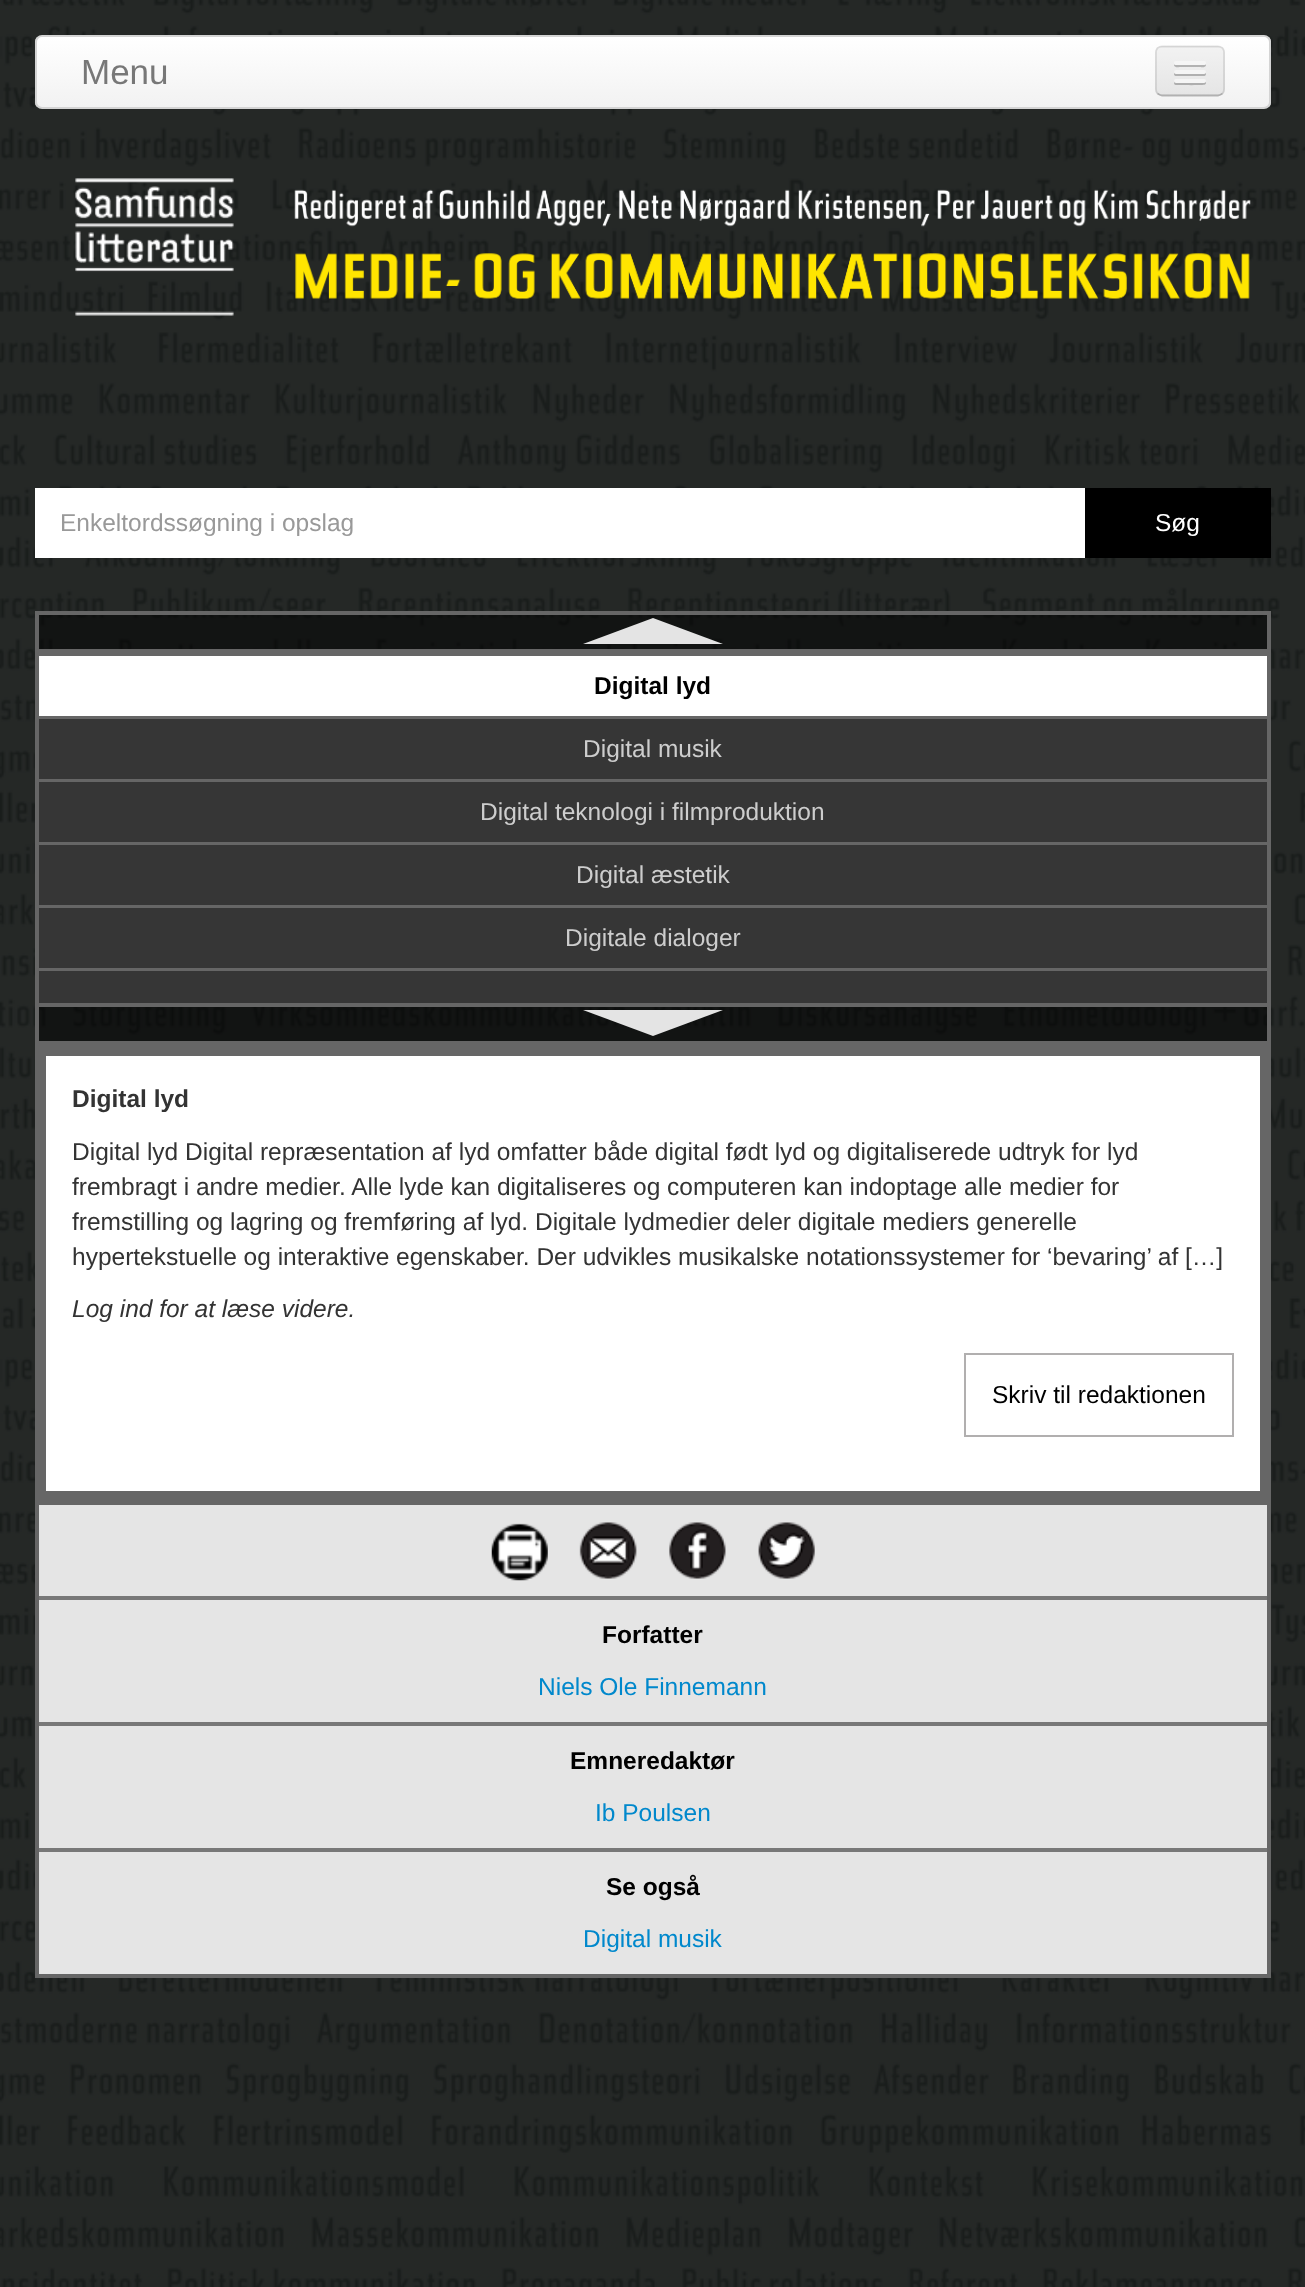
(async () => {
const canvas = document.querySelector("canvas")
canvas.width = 1305
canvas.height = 2287
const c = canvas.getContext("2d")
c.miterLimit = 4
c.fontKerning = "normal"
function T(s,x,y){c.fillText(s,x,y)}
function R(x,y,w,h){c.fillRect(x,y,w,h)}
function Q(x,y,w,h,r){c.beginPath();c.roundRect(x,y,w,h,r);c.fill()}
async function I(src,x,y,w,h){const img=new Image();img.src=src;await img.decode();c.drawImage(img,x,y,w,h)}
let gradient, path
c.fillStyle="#fff"
R(0,0,1305,2287)
await I("1.png",0,0,1305,2287)
c.save()
c.beginPath()
c.roundRect(35,35,1236,74,7)
c.clip()
gradient = c.createLinearGradient(653,37,653,107)
gradient.addColorStop(0,"#fff")
gradient.addColorStop(1,"#f2f2f2")
c.fillStyle = gradient
R(35,37,1236,70)
c.restore()
c.beginPath()
c.roundRect(36,36,1234,72,6)
c.strokeStyle="#d4d4d4"
c.lineWidth=2
c.stroke()
c.font="35px Liberation Sans"
c.fillStyle="#777"
T("Menu",81,84)
c.fillStyle="#ededed"
Q(1155,46,70,50,7)
c.save()
c.beginPath()
c.roundRect(1155,46,70,50,7)
c.clip()
gradient = c.createLinearGradient(1190,47,1190,95)
gradient.addColorStop(0,"#f2f2f2")
gradient.addColorStop(1,"#e5e5e5")
c.fillStyle = gradient
R(1155,47,70,48)
c.restore()
path = new Path2D("M1222.5 93.5c-1.5 1-3 2-4.5 2h-56c-1.5 0-3-1-4.5-2")
c.strokeStyle="#00000040"
c.lineWidth=1.8
c.stroke(path)
path = new Path2D("M1157.5 93.5c-1-1-1.5-2.5-1.5-4.5v-36.5c0-1.5 .5-3 1.5-4.5c1.5-1 3-1.5 4.5-1.5h56c1.5 0 3 .5 4.5 1.5c1 1.5 1.5 3 1.5 4.5v36.5c0 2-.5 3.5-1.5 4.5")
c.strokeStyle="#0000001a"
c.stroke(path)
c.fillStyle="#b2b2b2"
path = new Path2D("M1174.5 64l-.5 1.5c.5 2.5 5.5 1.5 6.5 1.5h19c1 0 6 1 6.5-1.5l-.5-1.5c0 .5-1 1-1.5 1h-28c-.5 0-1.5-.5-1.5-1z")
c.fill(path)
c.fillStyle="#f5f5f5"
Q(1174,61,32,4,2)
c.fillStyle="#b0b0b0"
path = new Path2D("M1174.5 72.5c-1 1.5-.5 3 1 3.5h29c1.5-.5 2-2 1-3.5l-1.5 1h-28z")
c.fill(path)
c.fillStyle="#f5f5f5"
Q(1174,70,32,4,2)
c.fillStyle="#aeaeae"
path = new Path2D("M1174.5 81.5c-1 1.5-.5 3.5 1.5 3.5c3.5 0 28 .5 29-.5c1-.5 1.5-2 .5-3l-1.5 .5h-28z")
c.fill(path)
c.fillStyle="#f5f5f5"
Q(1174,79,32,4,2)
await I("2.png",75,178,159,138)
await I("3.png",294,189,957,111)
c.fillStyle="#fff"
R(35,488,1050,70)
c.font="24.5px Liberation Sans"
c.fillStyle="#999"
T("Enkeltordssøgning i opslag",60,531)
c.fillStyle="#000"
R(1085,488,186,70)
c.fillStyle="#fff"
T("Søg",1155,531)
c.fillStyle="#00000080"
c.beginPath()
c.rect(37,613,1232,38)
c.fill()
c.strokeStyle="#666"
c.lineWidth=4
c.stroke()
c.fillStyle="#e4e4e4"
path = new Path2D("M723 644h-140l70-26z")
c.fill(path)
c.fillStyle="#666"
R(35,653,1236,3)
c.fillStyle="#fff"
R(39,656,1228,60)
c.fillStyle="#666"
R(1267,656,4,347)
R(35,716,1236,3)
R(35,656,4,63)
c.font="bold 24.5px Liberation Sans"
c.fillStyle="#000"
T("Digital lyd",594,694)
c.fillStyle="#363636"
R(39,719,1228,60)
c.fillStyle="#666"
R(35,779,1236,3)
R(35,719,4,63)
c.font="24.5px Liberation Sans"
c.fillStyle="#cdcdcd"
T("Digital musik",583,757)
c.fillStyle="#363636"
R(39,782,1228,60)
c.fillStyle="#666"
R(35,842,1236,3)
R(35,782,4,63)
c.fillStyle="#cdcdcd"
T("Digital teknologi i filmproduktion",480,820)
c.fillStyle="#363636"
R(39,845,1228,60)
c.fillStyle="#666"
R(35,905,1236,3)
R(35,845,4,63)
c.fillStyle="#cdcdcd"
T("Digital æstetik",576,883)
c.fillStyle="#363636"
R(39,908,1228,60)
c.fillStyle="#666"
R(35,968,1236,3)
R(35,908,4,95)
c.fillStyle="#cdcdcd"
T("Digitale dialoger",565,946)
c.fillStyle="#363636"
R(39,971,1228,32)
c.fillStyle="#00000080"
c.beginPath()
c.rect(37,1005,1232,38)
c.fill()
c.stroke()
c.fillStyle="#e4e4e4"
path = new Path2D("M583 1010h140l-70 26z")
c.fill(path)
c.fillStyle="#fff"
c.beginPath()
c.rect(40.5,1050.5,1225,446)
c.fill()
c.lineWidth=11
c.stroke()
c.font="bold 24.5px Liberation Sans"
c.fillStyle="#333"
T("Digital lyd",72,1107)
c.font="24.5px Liberation Sans"
T("Digital lyd Digital repræsentation af lyd omfatter både digital født lyd og digitaliserede udtryk for lyd",72,1160)
T("frembragt i andre medier. Alle lyde kan digitaliseres og computeren kan indoptage alle medier for",72,1195)
T("fremstilling og lagring og fremføring af lyd. Digitale lydmedier deler digitale mediers generelle",72,1230)
T("hypertekstuelle og interaktive egenskaber. Der udvikles musikalske notationssystemer for ‘bevaring’ af […]",72,1265)
c.font="italic 24.5px Liberation Sans"
T("Log ind for at læse videre.",72,1317)
c.strokeStyle="#b1afaf"
c.lineWidth=2
c.strokeRect(965,1354,268,82)
c.font="24.5px Liberation Sans"
c.fillStyle="#000"
T("Skriv til redaktionen",992,1403)
c.strokeStyle="#666"
c.lineWidth=4
c.strokeRect(37,1504,1232,472)
c.fillStyle="#e5e5e5"
R(39,1505,1228,91)
await I("4.png",491,1523,57,58)
await I("5.png",579,1522,58,57)
await I("6.png",669,1522,57,57)
await I("7.png",758,1522,57,57)
R(39,1600,1228,122)
c.fillStyle="#787878"
R(39,1596,1228,4)
c.font="bold 24.5px Liberation Sans"
c.fillStyle="#000"
T("Forfatter",602,1643)
c.font="24.5px Liberation Sans"
c.fillStyle="#08c"
T("Niels Ole Finnemann",538,1695)
c.fillStyle="#e5e5e5"
R(39,1726,1228,122)
c.fillStyle="#787878"
R(39,1722,1228,4)
c.font="bold 24.5px Liberation Sans"
c.fillStyle="#000"
T("Emneredaktør",570,1769)
c.font="24.5px Liberation Sans"
c.fillStyle="#08c"
T("Ib Poulsen",595,1821)
c.fillStyle="#e5e5e5"
R(39,1852,1228,122)
c.fillStyle="#787878"
R(39,1848,1228,4)
c.font="bold 24.5px Liberation Sans"
c.fillStyle="#000"
T("Se også",606,1895)
c.font="24.5px Liberation Sans"
c.fillStyle="#08c"
T("Digital musik",583,1947)
})()
